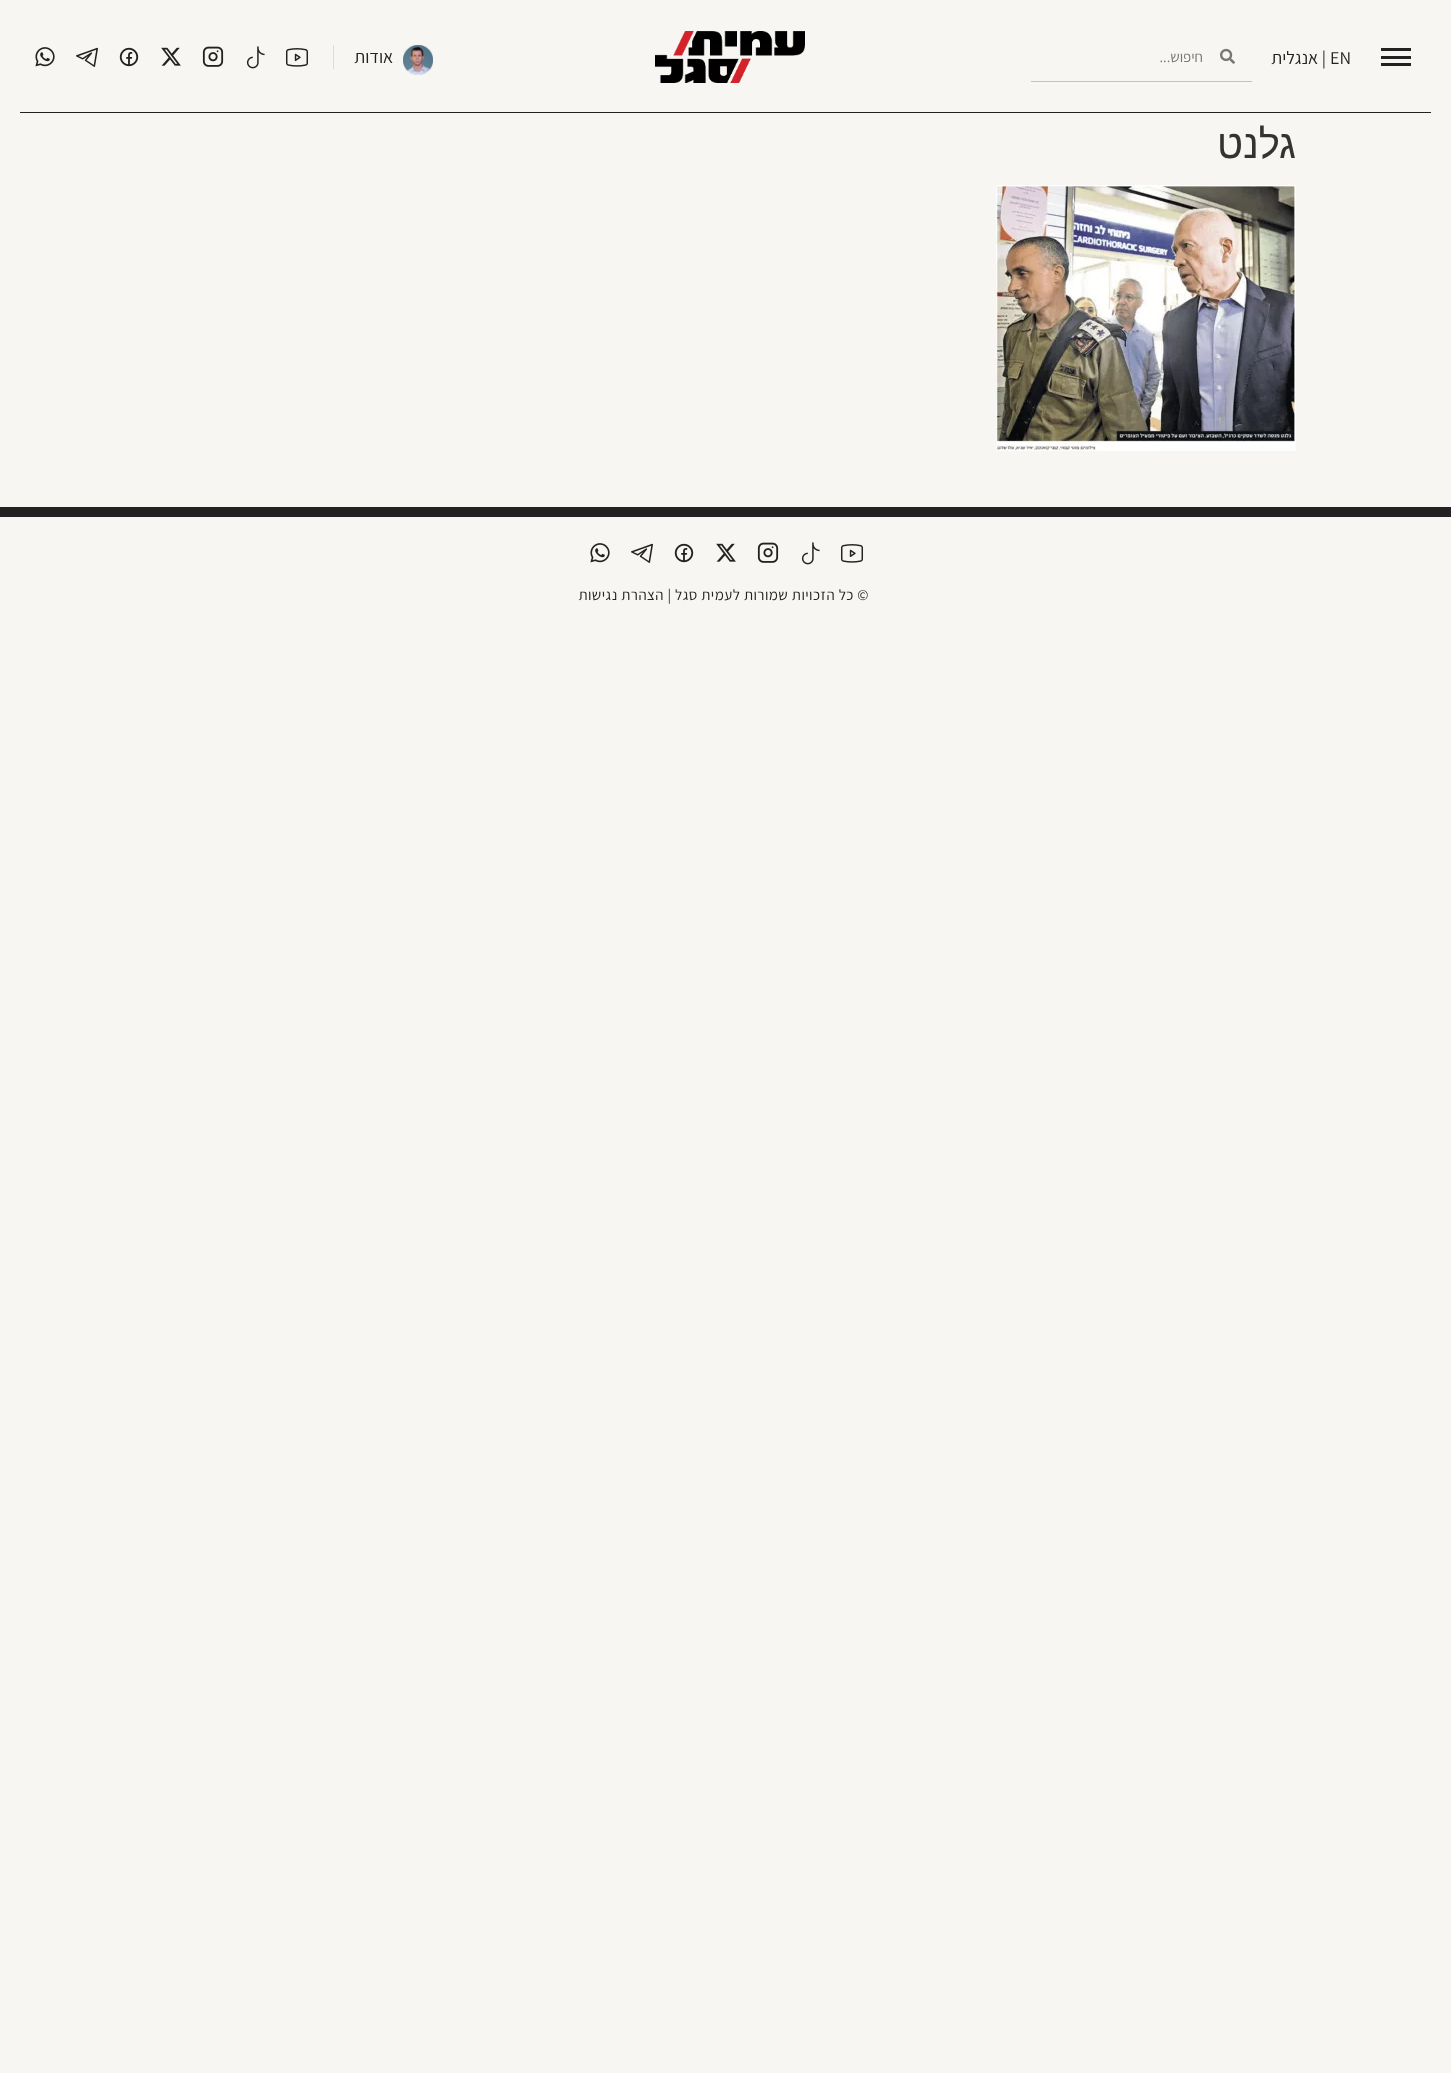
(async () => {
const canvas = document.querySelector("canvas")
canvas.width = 1451
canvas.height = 2073
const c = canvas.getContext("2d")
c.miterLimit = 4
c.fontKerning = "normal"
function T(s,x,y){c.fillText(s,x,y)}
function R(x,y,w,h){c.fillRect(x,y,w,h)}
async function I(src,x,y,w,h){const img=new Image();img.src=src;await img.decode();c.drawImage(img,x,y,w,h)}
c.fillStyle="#f7f6f2"
R(0,0,1451,2073)
c.fillStyle="#222"
R(20,112,1411,1)
R(1381,48,30,3)
R(1381,56,30,3)
R(1381,63,30,3)
c.font="18px Assistant"
T("EN",1330,64)
c.direction="rtl"
T("| אנגלית",1326,64)
c.fillStyle="#c1c1be"
R(1031,81,221,1)
await I("1.png",1220,48,15,16)
c.font="15px Assistant"
c.fillStyle="#777775"
T("חיפוש...",1203,62)
await I("2.png",655,31,150,52)
c.fillStyle="#ddd"
R(333,45,1,24)
await I("3.png",403,45,30,30)
c.font="18px Assistant"
c.fillStyle="#222"
T("אודות",393,63)
await I("4.png",286,48,22,19)
await I("5.png",246,46,19,23)
await I("6.png",202,46,22,21)
await I("7.png",161,47,20,19)
await I("8.png",119,47,20,20)
await I("9.png",76,47,22,20)
await I("10.png",35,47,20,20)
c.font="40px Liberation Sans"
c.fillStyle="#333"
T("גלנט",1296,158)
await I("11.png",996,185,300,266)
c.fillStyle="#222"
R(0,507,1451,10)
await I("4.png",841,544,22,19)
await I("5.png",801,542,19,23)
await I("6.png",757,542,22,21)
await I("7.png",716,543,20,19)
await I("8.png",674,543,20,20)
await I("9.png",631,543,22,20)
await I("10.png",590,543,20,20)
c.letterSpacing="0.5px"
c.font="15px Assistant"
T("© כל הזכויות שמורות לעמית סגל |",869,600)
T("הצהרת נגישות",664,600)
})()
